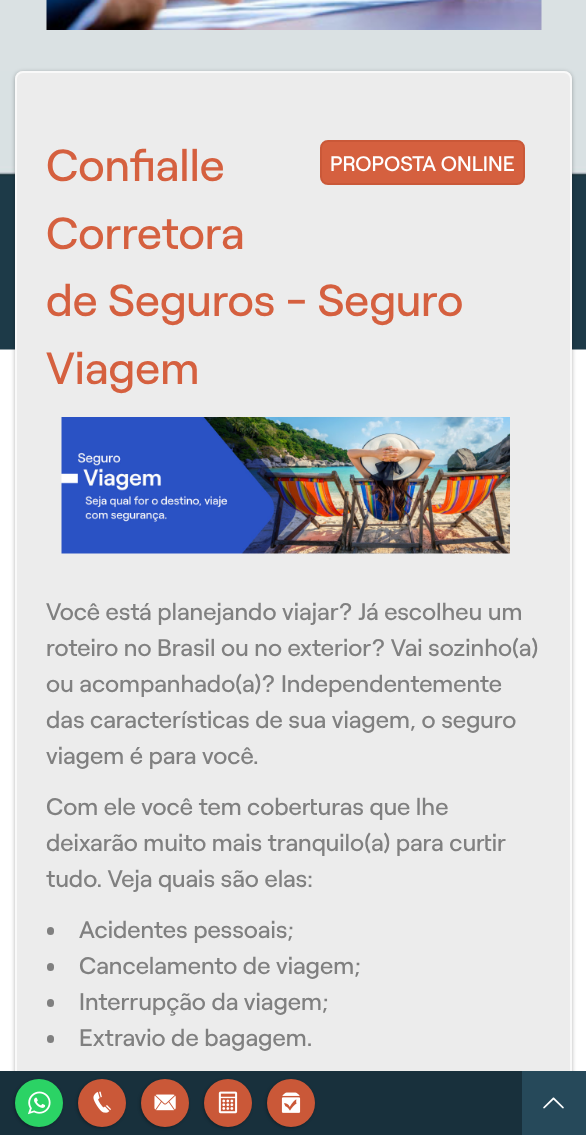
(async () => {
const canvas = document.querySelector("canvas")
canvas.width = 586
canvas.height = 1135
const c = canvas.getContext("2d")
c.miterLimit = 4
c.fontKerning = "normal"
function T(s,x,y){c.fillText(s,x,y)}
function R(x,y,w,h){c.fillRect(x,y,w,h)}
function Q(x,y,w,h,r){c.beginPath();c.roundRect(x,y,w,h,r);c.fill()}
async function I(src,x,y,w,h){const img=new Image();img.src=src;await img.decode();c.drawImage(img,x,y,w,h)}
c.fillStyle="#fff"
R(0,0,586,1135)
c.fillStyle="#dae1e3"
R(0,0,586,71)
await I("1.png",46,0,496,30)
await I("2.png",0,71,586,279)
c.fillStyle="#0000004d"
c.filter="blur(2px)"
c.beginPath()
c.roundRect(15,72,557,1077,8)
c.fill()
c.filter="none"
c.fillStyle="#ececec"
Q(15,71,557,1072,8)
c.beginPath()
c.roundRect(16,72,555,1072,7)
c.strokeStyle="#ffffffb3"
c.lineWidth=2
c.stroke()
c.font="500 45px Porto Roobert"
c.fillStyle="#d5603f"
T("Confialle",46,181)
T("Corretora",46,249)
T("de Seguros - Seguro",46,316)
T("Viagem",46,384)
await I("3.png",61,417,449,137)
c.font="500 24px Porto Roobert"
c.fillStyle="#808080"
T("Você está planejando viajar? Já escolheu um",46,620)
T("roteiro no Brasil ou no exterior? Vai sozinho(a)",46,656)
T("ou acompanhado(a)? Independentemente",46,692)
T("das características de sua viagem, o seguro",46,728)
T("viagem é para você.",46,764)
T("Com ele você tem coberturas que lhe",46,815)
T("deixarão muito mais tranquilo(a) para curtir",46,851)
T("tudo. Veja quais são elas:",46,887)
Q(47,927,7,8,3.5)
T("Acidentes pessoais;",79,938)
Q(47,963,7,8,3.5)
T("Cancelamento de viagem;",79,974)
Q(47,999,7,8,3.5)
T("Interrupção da viagem;",79,1010)
Q(47,1035,7,8,3.5)
T("Extravio de bagagem.",79,1046)
c.fillStyle="#d5603f"
c.beginPath()
c.roundRect(321,141,203,43,7)
c.fill()
c.strokeStyle="#ca5838"
c.stroke()
c.font="500 21px Porto Roobert"
c.fillStyle="#fff"
T("PROPOSTA ONLINE",330,171)
c.fillStyle="#18303c"
R(0,1071,522,64)
c.fillStyle="#0000004d"
c.filter="blur(1.5px)"
c.beginPath()
c.roundRect(14,1080,48,48,24)
c.fill()
c.filter="none"
c.fillStyle="#2bd365"
c.beginPath()
c.arc(39,1103,24,0,7)
c.fill()
await I("4.png",28,1091,23,24)
c.fillStyle="#0000004d"
c.filter="blur(1.5px)"
c.beginPath()
c.roundRect(77,1080,48,48,24)
c.fill()
c.filter="none"
c.fillStyle="#ca5838"
c.beginPath()
c.arc(102,1103,24,0,7)
c.fill()
await I("5.png",93,1091,18,22)
c.fillStyle="#0000004d"
c.filter="blur(1.5px)"
c.beginPath()
c.roundRect(140,1080,48,48,24)
c.fill()
c.filter="none"
c.fillStyle="#ca5838"
c.beginPath()
c.arc(165,1103,24,0,7)
c.fill()
await I("6.png",154,1094,22,17)
c.fillStyle="#0000004d"
c.filter="blur(1.5px)"
c.beginPath()
c.roundRect(203,1080,48,48,24)
c.fill()
c.filter="none"
c.fillStyle="#ca5838"
c.beginPath()
c.arc(228,1103,24,0,7)
c.fill()
await I("7.png",218,1091,20,23)
c.fillStyle="#0000004d"
c.filter="blur(1.5px)"
c.beginPath()
c.roundRect(266,1080,48,48,24)
c.fill()
c.filter="none"
c.fillStyle="#ca5838"
c.beginPath()
c.arc(291,1103,24,0,7)
c.fill()
await I("8.png",281,1092,20,21)
c.fillStyle="#26495a"
R(522,1071,64,64)
await I("9.png",543,1097,21,12)
})()
